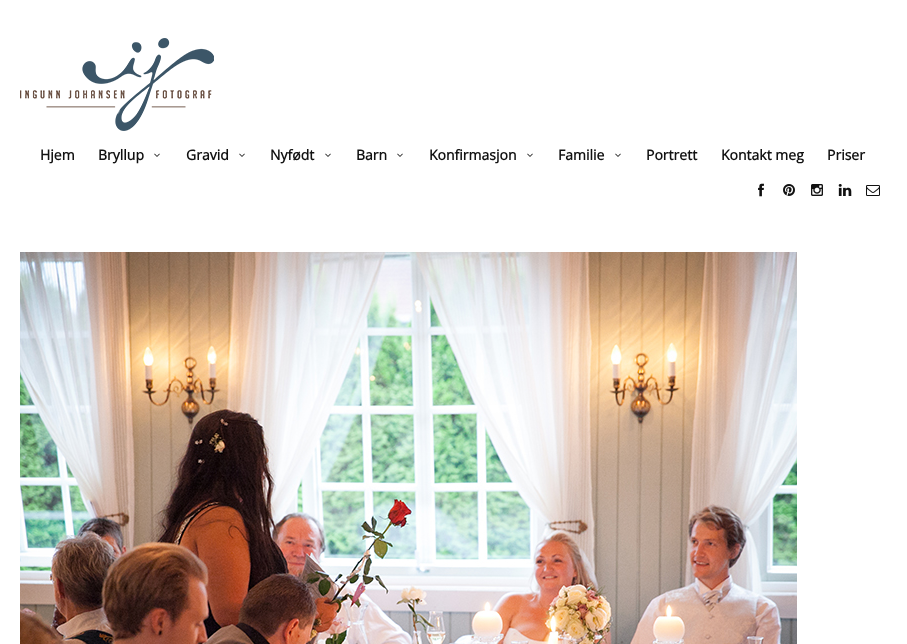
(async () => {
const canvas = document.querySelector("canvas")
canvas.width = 907
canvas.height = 644
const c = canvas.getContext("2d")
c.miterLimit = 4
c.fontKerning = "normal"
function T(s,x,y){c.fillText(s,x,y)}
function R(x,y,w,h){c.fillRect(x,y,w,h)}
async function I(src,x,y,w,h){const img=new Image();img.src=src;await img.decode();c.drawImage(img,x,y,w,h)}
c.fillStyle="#fff"
R(0,0,907,644)
await I("1.png",20,38,194,93)
c.font="bold 14px Open Sans"
c.fillStyle="#111"
T("Hjem",40,160)
T("Bryllup",98,160)
await I("2.png",154,153,6,4)
T("Gravid",186,160)
await I("2.png",239,153,6,4)
T("Nyfødt",270,160)
await I("2.png",325,153,6,4)
T("Barn",356,160)
await I("2.png",397,153,6,4)
T("Konfirmasjon",429,160)
await I("2.png",527,153,6,4)
T("Familie",558,160)
await I("2.png",615,153,6,4)
T("Portrett",646,160)
T("Kontakt meg",721,160)
T("Priser",827,160)
await I("3.png",758,183,6,14)
await I("4.png",783,184,12,12)
await I("5.png",811,184,12,12)
await I("6.png",838,184,14,12)
await I("7.png",866,185,14,11)
await I("8.png",20,252,777,392)
})()
